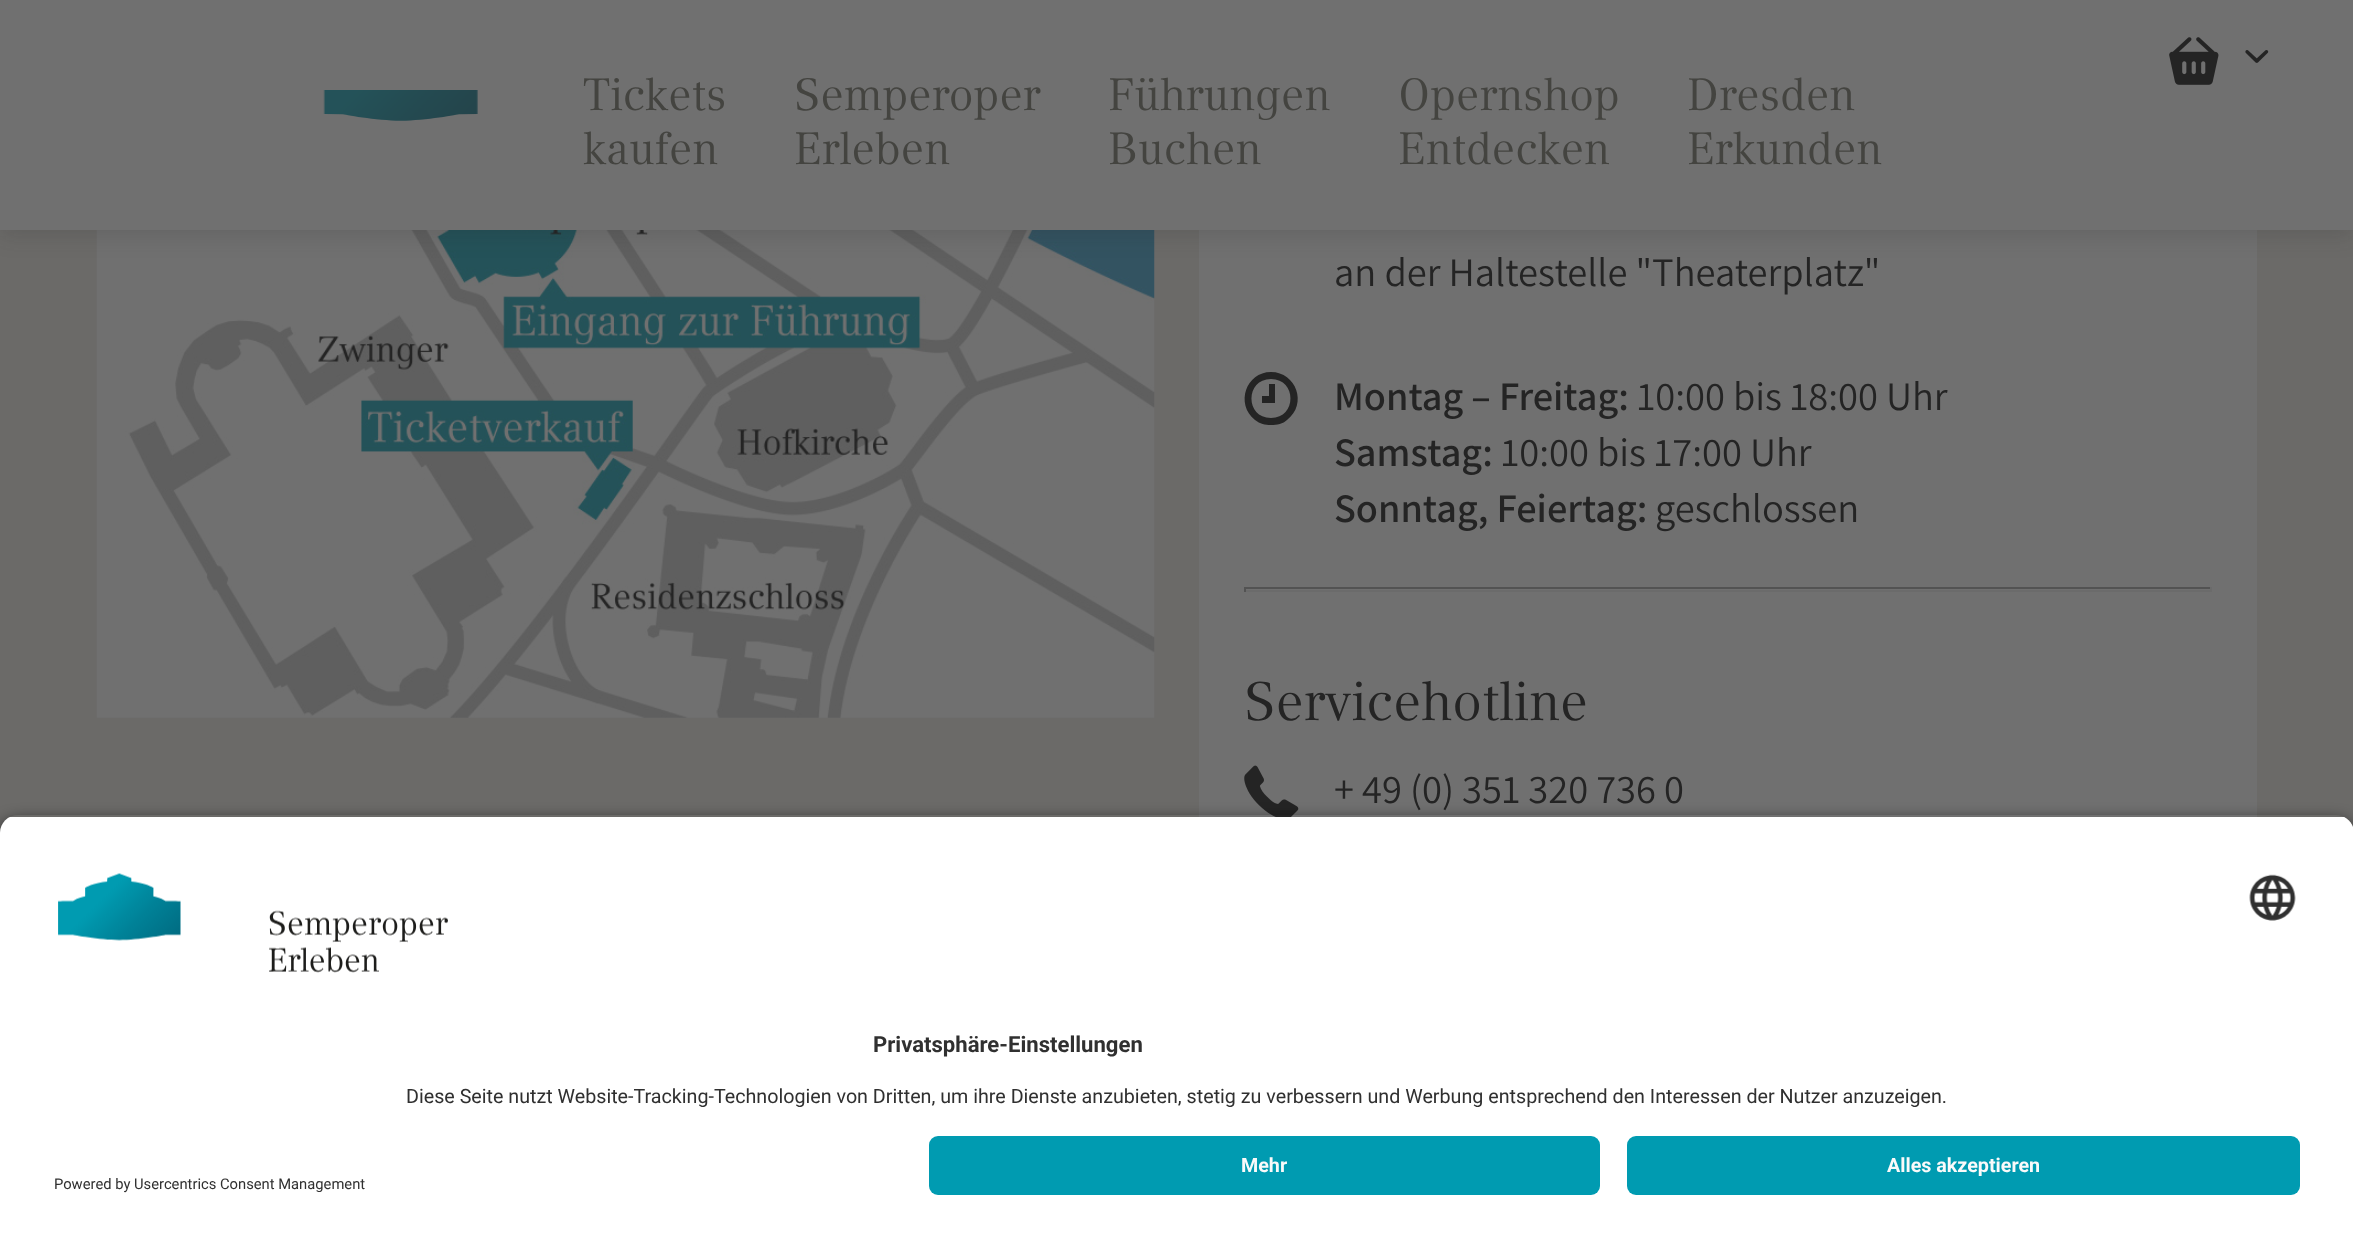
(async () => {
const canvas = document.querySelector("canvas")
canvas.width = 2353
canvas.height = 1247
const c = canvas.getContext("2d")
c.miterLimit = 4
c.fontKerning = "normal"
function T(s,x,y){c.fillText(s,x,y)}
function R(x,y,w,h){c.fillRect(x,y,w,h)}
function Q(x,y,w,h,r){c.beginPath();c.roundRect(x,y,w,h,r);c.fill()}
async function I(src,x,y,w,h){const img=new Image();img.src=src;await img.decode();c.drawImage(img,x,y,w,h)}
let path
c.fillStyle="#6b6a68"
R(0,0,2353,1247)
await I("4.png",96,230,1059,488)
c.fillStyle="#707070"
R(1199,230,1058,587)
c.fillStyle="#24242426"
c.filter="blur(11px)"
c.beginPath()
c.rect(0,7,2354,229)
c.fill()
c.filter="none"
c.fillStyle="#707070"
R(0,0,2353,230)
await I("1.png",2169,37,50,48)
await I("2.png",2245,50,24,13)
await I("3.png",323,90,155,31)
c.font="45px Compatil"
c.fillStyle="#444440"
T("Tickets",583,110)
T("kaufen",583,164)
T("Semperoper",794,110)
T("Erleben",794,164)
T("Führungen",1108,110)
T("Buchen",1108,164)
T("Opernshop",1398,110)
T("Entdecken",1398,164)
T("Dresden",1687,110)
T("Erkunden",1687,164)
c.font="200 40.5px Assistant"
c.fillStyle="#242424"
T("an der Haltestelle \"Theaterplatz\"",1334,286)
path = new Path2D("M1271 372c25 0 37 32 16 48c-4 4-10 5-16 5c-6 0-11-1-16-5c-20-16-9-48 16-48zm0 7c-26 0-26 39 0 39c26 0 26-39 0-39zm-2 5h6v19h-13v-7h7z")
c.fill(path)
c.font="200 40.5px 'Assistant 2'"
T("Montag – Freitag:",1334,410)
c.font="200 40.5px Assistant"
T("10:00 bis 18:00 Uhr",1637,410)
c.font="200 40.5px 'Assistant 2'"
T("Samstag:",1334,466)
c.font="200 40.5px Assistant"
T("10:00 bis 17:00 Uhr",1501,466)
c.font="200 40.5px 'Assistant 2'"
T("Sonntag, Feiertag:",1334,522)
c.font="200 40.5px Assistant"
T("geschlossen",1655,522)
c.fillStyle="#535353"
R(1244,587,968,2)
c.fillStyle="#6b6b6b"
R(2210,587,2,5)
R(1244,590,968,2)
c.fillStyle="#535353"
R(1244,587,2,5)
c.font="54px Compatil"
c.fillStyle="#242424"
T("Servicehotline",1244,720)
await I("5.png",1244,765,55,52)
c.font="200 40.5px Assistant"
T("+ 49 (0) 351 320 736 0",1334,803)
c.save()
path = new Path2D("M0 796h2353v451h-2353zm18 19h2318c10 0 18 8 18 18v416h-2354v-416c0-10 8-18 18-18z")
c.clip(path,"evenodd")
c.fillStyle="#000000cc"
c.filter="blur(8px)"
c.beginPath()
c.roundRect(0,821,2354,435,18)
c.fill()
c.filter="none"
c.restore()
c.save()
path = new Path2D("M18 815h2318c10 0 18 8 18 18v285h-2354v-285c0-10 8-18 18-18z")
c.clip(path)
c.fillStyle="#fff"
R(0,817,2353,301)
c.restore()
await I("6.png",58,873,390,100)
await I("7.png",2249,874,47,47)
c.font="bold 22.1px Roboto"
c.fillStyle="#303030"
T("Privatsphäre-Einstellungen",873,1052)
c.font="19.7px Roboto"
T("Diese Seite nutzt Website-Tracking-Technologien von Dritten, um ihre Dienste anzubieten, stetig zu verbessern und Werbung entsprechend den Interessen der Nutzer anzuzeigen.",406,1103)
c.fillStyle="#fff"
R(0,1118,2353,129)
c.fillStyle="#009bb1"
Q(929,1136,671,59,9)
c.font="bold 19.7px Roboto"
c.fillStyle="#fafafa"
T("Mehr",1241,1172)
c.fillStyle="#009bb1"
Q(1627,1136,673,59,9)
c.fillStyle="#fafafa"
T("Alles akzeptieren",1887,1172)
c.font="14.75px Roboto"
c.fillStyle="#303030"
T("Powered by Usercentrics Consent Management",54,1189)
})()
